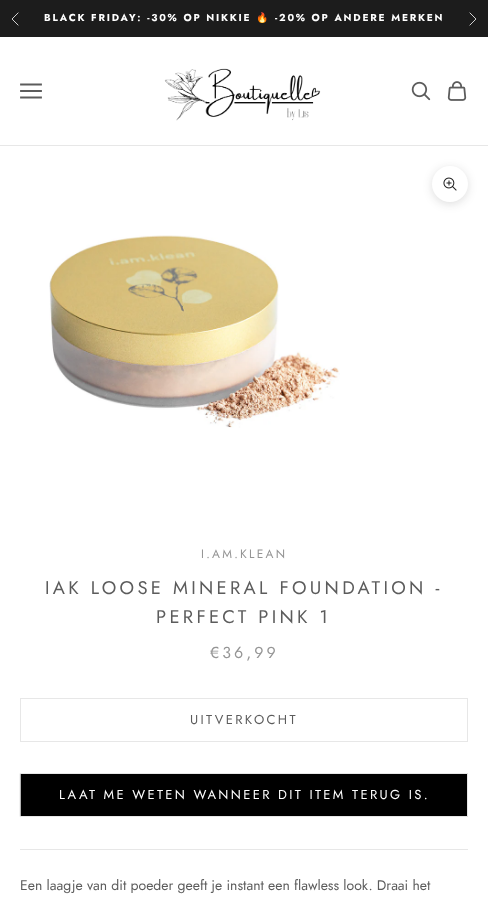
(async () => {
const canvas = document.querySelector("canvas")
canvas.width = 488
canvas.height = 907
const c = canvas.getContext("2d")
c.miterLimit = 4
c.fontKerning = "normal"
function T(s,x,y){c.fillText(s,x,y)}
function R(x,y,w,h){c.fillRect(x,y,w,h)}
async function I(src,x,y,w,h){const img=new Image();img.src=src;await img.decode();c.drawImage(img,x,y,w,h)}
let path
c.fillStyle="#fff"
R(0,0,488,907)
c.fillStyle="#1c1c1c"
R(0,0,488,37)
path = new Path2D("M18 13l-6 6l6 6")
c.strokeStyle="#fff"
c.lineWidth=0.8
c.lineCap="square"
c.stroke(path)
c.letterSpacing="1.8px"
c.font="bold 10px Jost"
c.fillStyle="#fff"
T("BLACK FRIDAY: -30% OP NIKKIE",44,21)
c.font="bold 10px Noto Color Emoji"
T("🔥",256,21)
c.font="bold 10px Jost"
T("-20% OP ANDERE MERKEN",275,21)
path = new Path2D("M470 25l6-6l-6-6")
c.stroke(path)
c.fillStyle="#e7e7e7"
R(0,145,488,1)
path = new Path2D("M21 97.5h20m-20-6.5h20m-20-6.5h20")
c.strokeStyle="#5c5c5c"
c.lineWidth=1.8
c.stroke(path)
await I("1.png",164,68,157,53)
await I("2.png",411,81,20,20)
await I("3.png",447,81,20,20)
c.fillStyle="#1c1c1c26"
c.filter="blur(5px)"
c.beginPath()
c.roundRect(432,168,36,36,18)
c.fill()
c.filter="none"
c.fillStyle="#fff"
c.beginPath()
c.arc(450,184,18,0,7)
c.fill()
await I("4.png",443,177,14,14)
await I("5.png",49,235,291,193)
c.letterSpacing="2.25px"
c.font="12px Jost"
c.fillStyle="#959595"
T("I.AM.KLEAN",201,558)
c.letterSpacing="3.3px"
c.font="18.4px Jost"
c.fillStyle="#5c5c5c"
T("IAK LOOSE MINERAL FOUNDATION -",45,594)
T("PERFECT PINK 1",156,623)
c.letterSpacing="3px"
c.font="16px Jost"
c.fillStyle="#959595"
T("€36,99",210,658)
c.strokeStyle="#e7e7e7"
c.lineWidth=1
c.strokeRect(20.5,698.5,447,43)
c.letterSpacing="2.35px"
c.font="13px Jost"
c.fillStyle="#5c5c5c"
T("UITVERKOCHT",190,724)
c.fillStyle="#000"
c.beginPath()
c.rect(20.5,773.5,447,43)
c.fill()
c.stroke()
c.fillStyle="#fff"
T("LAAT ME WETEN WANNEER DIT ITEM TERUG IS.",59,799)
c.fillStyle="#e7e7e7"
R(20,849,448,1)
c.letterSpacing="0px"
c.font="14px Jost"
c.fillStyle="#5c5c5c"
T("Een laagje van dit poeder geeft je instant een flawless look. Draai het",20,890)
})()
